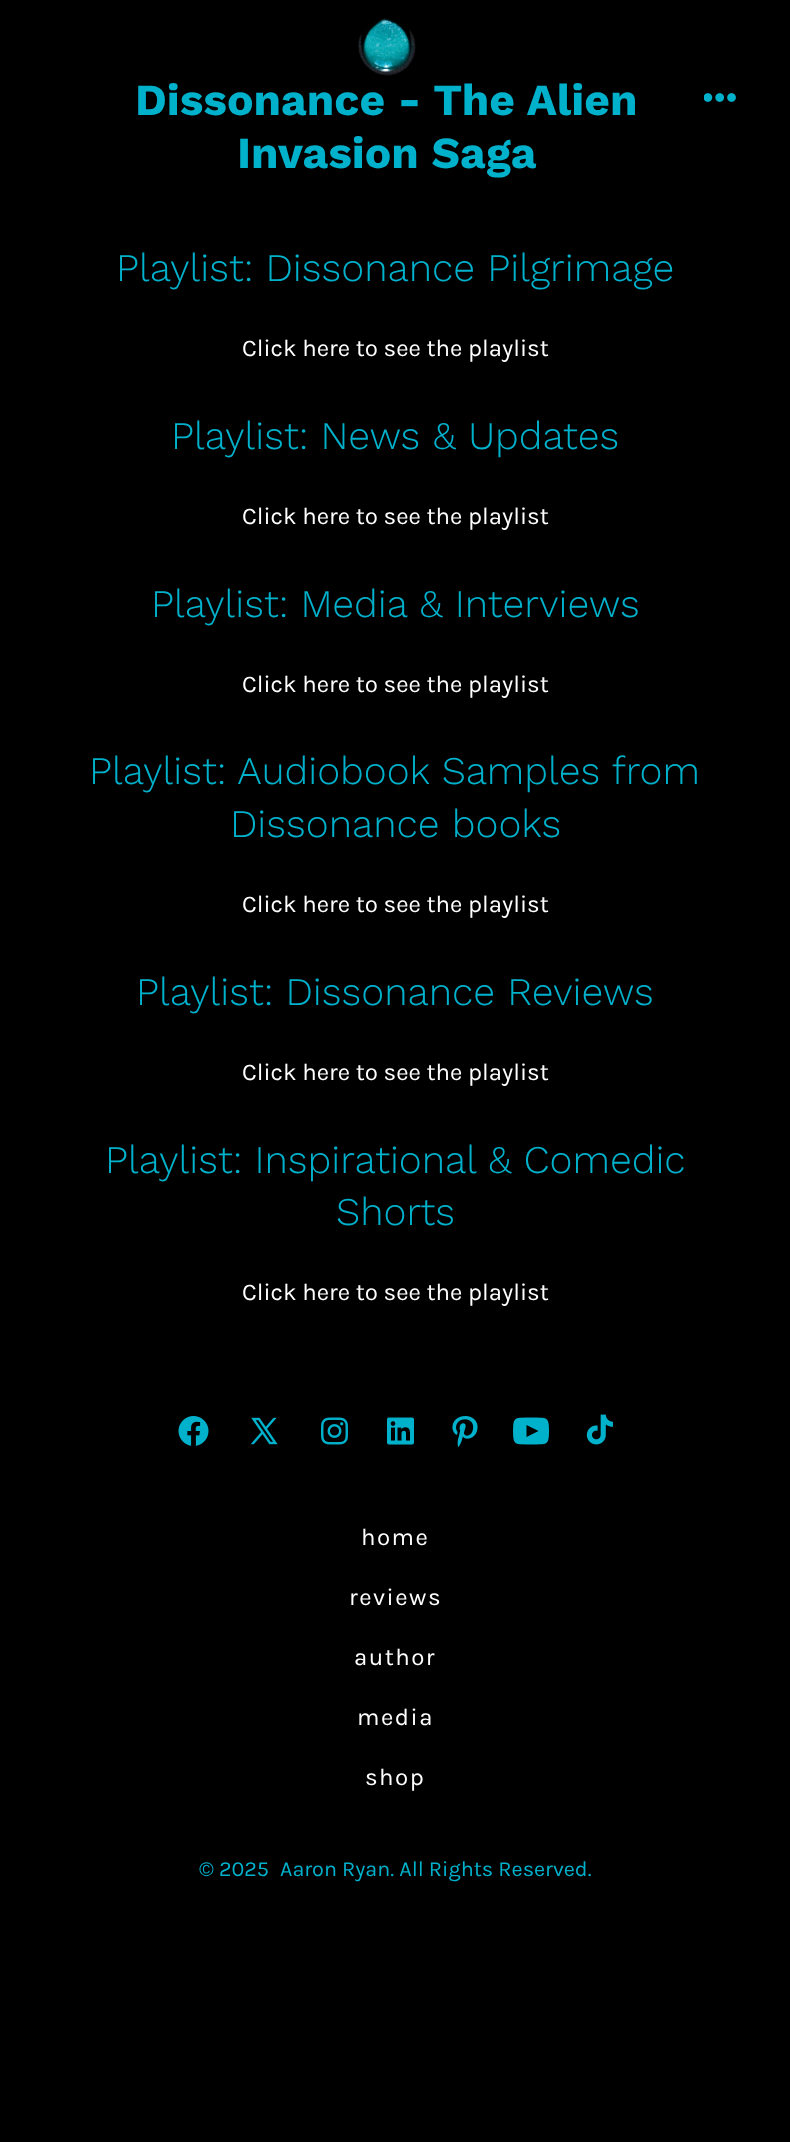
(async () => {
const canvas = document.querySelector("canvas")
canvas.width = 790
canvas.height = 2142
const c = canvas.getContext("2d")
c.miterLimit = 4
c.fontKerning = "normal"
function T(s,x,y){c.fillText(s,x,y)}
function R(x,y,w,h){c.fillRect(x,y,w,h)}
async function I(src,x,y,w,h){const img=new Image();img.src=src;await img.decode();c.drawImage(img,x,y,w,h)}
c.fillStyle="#000"
R(0,0,790,2142)
await I("1.png",358,18,58,58)
c.font="bold 44.4px Work Sans"
c.fillStyle="#00b1cc"
T("Dissonance - The Alien",135,115)
T("Invasion Saga",237,168)
await I("2.png",704,93,32,9)
c.font="300 39.1px Work Sans"
T("Playlist: Dissonance Pilgrimage",116,281)
c.font="24px Karla"
c.fillStyle="#fff"
T("Click here to see the playlist",242,356)
c.font="300 39.1px Work Sans"
c.fillStyle="#00b1cc"
T("Playlist: News & Updates",171,449)
c.font="24px Karla"
c.fillStyle="#fff"
T("Click here to see the playlist",242,524)
c.font="300 39.1px Work Sans"
c.fillStyle="#00b1cc"
T("Playlist: Media & Interviews",151,617)
c.font="24px Karla"
c.fillStyle="#fff"
T("Click here to see the playlist",242,692)
c.font="300 39.1px Work Sans"
c.fillStyle="#00b1cc"
T("Playlist: Audiobook Samples from",89,784)
T("Dissonance books",230,837)
c.font="24px Karla"
c.fillStyle="#fff"
T("Click here to see the playlist",242,912)
c.font="300 39.1px Work Sans"
c.fillStyle="#00b1cc"
T("Playlist: Dissonance Reviews",136,1005)
c.font="24px Karla"
c.fillStyle="#fff"
T("Click here to see the playlist",242,1080)
c.font="300 39.1px Work Sans"
c.fillStyle="#00b1cc"
T("Playlist: Inspirational & Comedic",105,1173)
T("Shorts",336,1225)
c.font="24px Karla"
c.fillStyle="#fff"
T("Click here to see the playlist",242,1300)
await I("3.png",178,1416,31,30)
await I("4.png",250,1417,28,28)
await I("5.png",321,1417,27,28)
await I("6.png",387,1417,27,28)
await I("7.png",452,1416,26,32)
await I("8.png",513,1417,36,28)
await I("9.png",586,1414,27,31)
c.letterSpacing="1.5px"
T("home",361,1545)
T("reviews",349,1605)
T("author",354,1665)
T("media",357,1725)
T("shop",365,1785)
c.letterSpacing="0px"
c.font="21.6px Karla"
c.fillStyle="#00b1cc"
T("© 2025",199,1876)
T("Aaron Ryan. All Rights Reserved.",280,1876)
})()
